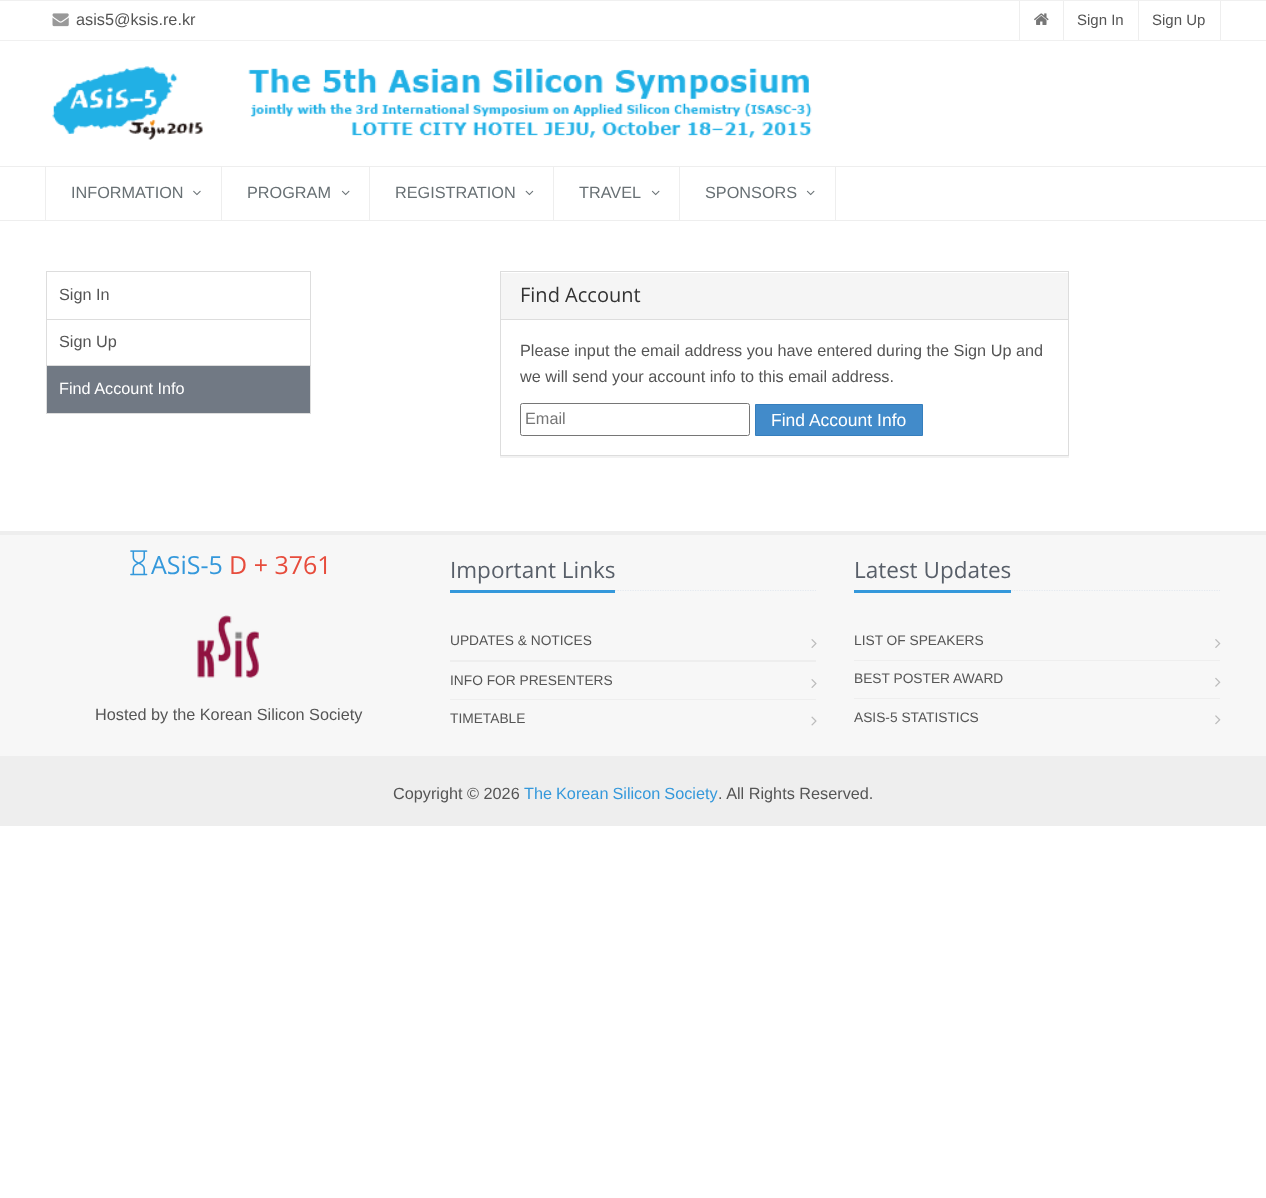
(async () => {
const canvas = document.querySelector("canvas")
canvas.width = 1266
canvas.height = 1198
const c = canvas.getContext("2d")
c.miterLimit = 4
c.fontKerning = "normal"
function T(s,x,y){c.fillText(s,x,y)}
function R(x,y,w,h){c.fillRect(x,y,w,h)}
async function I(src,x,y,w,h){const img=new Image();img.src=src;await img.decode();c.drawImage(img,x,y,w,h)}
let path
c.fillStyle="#fff"
R(0,0,1266,1198)
c.fillStyle="#f0f0f0"
R(0,0,1266,1)
R(0,40,1266,1)
await I("1.png",52,13,17,14)
c.font="16.25px Liberation Sans"
c.fillStyle="#555"
T("asis5@ksis.re.kr",76,25)
c.fillStyle="#eee"
R(1063,1,1,39)
R(1019,1,1,39)
await I("2.png",1034,13,15,12)
R(1138,1,1,39)
c.font="15px Liberation Sans"
c.fillStyle="#555"
T("Sign In",1077,25)
c.fillStyle="#eee"
R(1220,1,1,39)
c.fillStyle="#555"
T("Sign Up",1152,25)
await I("3.png",52,66,151,74)
await I("4.png",248,68,564,70)
c.fillStyle="#eee"
R(0,166,1266,1)
R(0,220,1266,1)
R(221,166,1,54)
R(45,166,1,54)
c.font="16.25px Liberation Sans"
c.fillStyle="#687074"
T("INFORMATION",71,198)
await I("5.png",193,190,8,6)
c.fillStyle="#eee"
R(369,166,1,54)
c.fillStyle="#687074"
T("PROGRAM",247,198)
await I("6.png",341,190,9,6)
c.fillStyle="#eee"
R(553,166,1,54)
c.fillStyle="#687074"
T("REGISTRATION",395,198)
await I("7.png",525,190,9,6)
c.fillStyle="#eee"
R(679,166,1,54)
c.fillStyle="#687074"
T("TRAVEL",579,198)
await I("6.png",651,190,9,6)
c.fillStyle="#eee"
R(835,166,1,54)
c.fillStyle="#687074"
T("SPONSORS",705,198)
await I("6.png",806,190,9,6)
c.strokeStyle="#ddd"
c.strokeRect(46.5,271.5,264,48)
c.fillStyle="#555"
T("Sign In",59,300)
c.strokeRect(46.5,319.5,264,46)
T("Sign Up",59,347)
c.fillStyle="#717984"
c.beginPath()
c.rect(46.5,365.5,264,48)
c.fill()
c.stroke()
c.fillStyle="#fff"
T("Find Account Info",59,394)
c.fillStyle="#0000000d"
c.filter="blur(0.5px)"
c.beginPath()
c.rect(500,273,569,185)
c.fill()
c.filter="none"
c.fillStyle="#fff"
R(501,273,567,182)
c.strokeRect(500.5,271.5,568,184)
c.fillStyle="#f5f5f5"
R(501,273,567,46)
c.fillStyle="#ddd"
R(501,319,567,1)
c.font="20px Open Sans"
c.fillStyle="#333"
T("Find Account",520,302)
c.font="16.25px Liberation Sans"
c.fillStyle="#555"
T("Please input the email address you have entered during the Sign Up and",520,356)
T("we will send your account info to this email address.",520,382)
c.beginPath()
c.roundRect(520.5,403.5,229,32,2)
c.strokeStyle="#767676"
c.stroke()
c.fillStyle="#757575"
T("Email",525,424)
c.fillStyle="#428bca"
c.beginPath()
c.rect(755.5,404.5,167,31)
c.fill()
c.strokeStyle="#357ebd"
c.stroke()
c.font="17.5px Liberation Sans"
c.fillStyle="#fff"
T("Find Account Info",771,426)
c.fillStyle="#f7f7f7"
R(0,535,1266,221)
c.fillStyle="#eee"
R(0,531,1266,4)
await I("8.png",130,550,18,26)
c.font="25px Open Sans"
c.fillStyle="#3498db"
T("ASiS-5",151,574)
c.fillStyle="#e74c3c"
T("D + 3761",229,574)
await I("9.png",197,615,62,63)
c.font="16.25px Liberation Sans"
c.fillStyle="#555"
T("Hosted by the Korean Silicon Society",95,720)
path = new Path2D("M450 590.5h366")
c.strokeStyle="#e4e9f0"
c.lineWidth=1.2
c.setLineDash([1.25,1.25])
c.stroke(path)
c.fillStyle="#3498db"
R(450,590,165,3)
c.font="22.5px Open Sans"
c.fillStyle="#585f69"
T("Important Links",450,578)
c.font="13.75px Liberation Sans"
c.fillStyle="#555"
T("UPDATES & NOTICES",450,645)
await I("10.png",811,639,6,9)
c.fillStyle="#eee"
R(450,660,366,2)
c.fillStyle="#555"
T("INFO FOR PRESENTERS",450,685)
await I("10.png",811,679,6,9)
c.fillStyle="#eee"
R(450,699,366,1)
c.fillStyle="#555"
T("TIMETABLE",450,723)
await I("11.png",811,716,6,10)
path = new Path2D("M854 590.5h366")
c.stroke(path)
c.fillStyle="#3498db"
R(854,590,157,3)
c.font="22.5px Open Sans"
c.fillStyle="#585f69"
T("Latest Updates",854,578)
c.font="13.75px Liberation Sans"
c.fillStyle="#555"
T("LIST OF SPEAKERS",854,645)
await I("12.png",1215,639,6,9)
c.fillStyle="#eee"
R(854,660,366,1)
c.fillStyle="#555"
T("BEST POSTER AWARD",854,683)
await I("13.png",1215,677,6,10)
c.fillStyle="#eee"
R(854,698,366,1)
c.fillStyle="#555"
T("ASIS-5 STATISTICS",854,722)
await I("14.png",1215,715,6,10)
c.fillStyle="#eee"
R(0,756,1266,70)
c.font="16.25px Liberation Sans"
c.fillStyle="#555"
T("Copyright © 2026",393,799)
c.wordSpacing="-0.5px"
c.fillStyle="#3498db"
T("The Korean Silicon Society",524,799)
c.wordSpacing="0px"
c.fillStyle="#555"
T(". All Rights Reserved.",718,799)
})()
